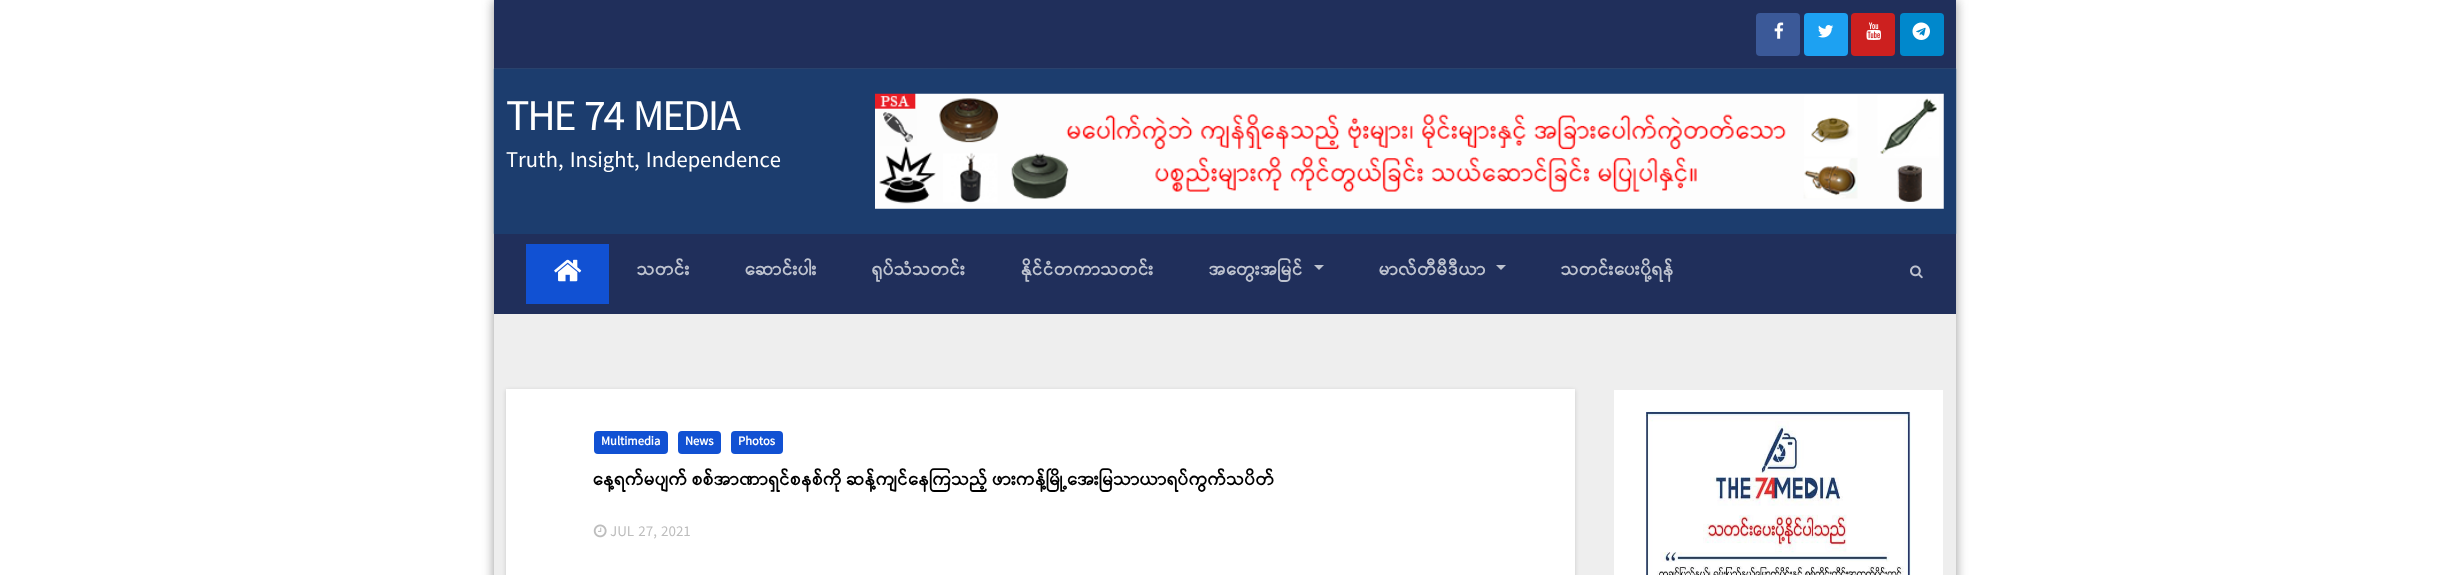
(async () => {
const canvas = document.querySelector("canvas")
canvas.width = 2448
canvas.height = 575
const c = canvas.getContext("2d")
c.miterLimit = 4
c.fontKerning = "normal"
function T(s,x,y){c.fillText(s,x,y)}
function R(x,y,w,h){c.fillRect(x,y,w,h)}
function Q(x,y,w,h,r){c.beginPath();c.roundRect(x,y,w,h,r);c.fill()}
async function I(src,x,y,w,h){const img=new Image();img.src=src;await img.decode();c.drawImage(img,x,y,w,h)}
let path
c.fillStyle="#fff"
R(0,0,2448,575)
c.fillStyle="#30303080"
c.filter="blur(6px)"
c.beginPath()
c.rect(494,0,1462,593)
c.fill()
c.filter="none"
c.fillStyle="#eee"
R(494,314,1462,261)
c.fillStyle="#202f5b"
R(494,0,1462,69)
c.fillStyle="#3b5998"
Q(1756,13,44,43,4)
await I("1.png",1774,22,10,17)
c.fillStyle="#1da1f2"
Q(1804,13,44,43,4)
await I("2.png",1818,25,16,13)
c.fillStyle="#cd201f"
Q(1851,13,44,43,4)
await I("3.png",1866,22,15,18)
c.fillStyle="#08c"
Q(1900,13,44,43,4)
await I("4.png",1912,22,18,18)
await I("5.png",493,68,1464,166)
c.fillStyle="#1c3d6e"
R(494,69,1462,165)
c.letterSpacing="-2.25px"
c.font="43.75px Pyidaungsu"
c.fillStyle="#fff"
T("THE 74 MEDIA",506,130)
c.letterSpacing="0px"
c.font="22.5px Pyidaungsu"
T("Truth, Insight, Independence",506,167)
await I("6.png",875,93,1069,116)
c.fillStyle="#202f5b"
R(494,234,1462,80)
c.fillStyle="#1151d3"
R(526,244,83,60)
await I("7.png",554,259,28,23)
c.letterSpacing="0.6px"
c.font="bold 17.5px Pyidaungsu"
c.fillStyle="#bec3cf"
T("သတင်း",637,275)
T("ဆောင်းပါး",745,275)
T("ရုပ်သံသတင်း",872,275)
T("နိုင်ငံတကာသတင်း",1021,275)
T("အတွေးအမြင်",1209,275)
path = new Path2D("M1314 265h10l-5 5z")
c.fill(path)
T("မာလ်တီမီဒီယာ",1379,275)
path = new Path2D("M1496 265h10l-5 5z")
c.fill(path)
T("သတင်းပေးပို့ရန်",1561,275)
await I("8.png",1910,265,13,14)
c.fillStyle="#00000026"
c.filter="blur(2px)"
c.beginPath()
c.rect(506,390,1069,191)
c.fill()
c.filter="none"
c.fillStyle="#fff"
R(506,389,1069,186)
c.fillStyle="#1151d3"
Q(594,431,74,23,4)
c.letterSpacing="0px"
c.font="bold 12.5px Pyidaungsu"
c.fillStyle="#fff"
T("Multimedia",601,445)
c.fillStyle="#1151d3"
Q(678,431,43,23,4)
c.fillStyle="#fff"
T("News",685,445)
c.fillStyle="#1151d3"
Q(731,431,52,23,4)
c.fillStyle="#fff"
T("Photos",738,445)
c.letterSpacing="0.38px"
c.wordSpacing="-1px"
c.font="bold 17.5px Pyidaungsu"
c.fillStyle="#000"
T("နေ့ရက်မပျက် စစ်အာဏာရှင်စနစ်ကို ဆန့်ကျင်နေကြသည့် ဖားကန့်မြို့အေးမြသာယာရပ်ကွက်သပိတ်",593,485)
await I("9.png",593,524,14,14)
c.letterSpacing="0px"
c.wordSpacing="0px"
c.font="15px Pyidaungsu"
c.fillStyle="#bdbdbd"
T("JUL 27, 2021",610,536)
c.fillStyle="#fff"
R(1614,390,329,185)
await I("10.png",1646,411,265,164)
})()
